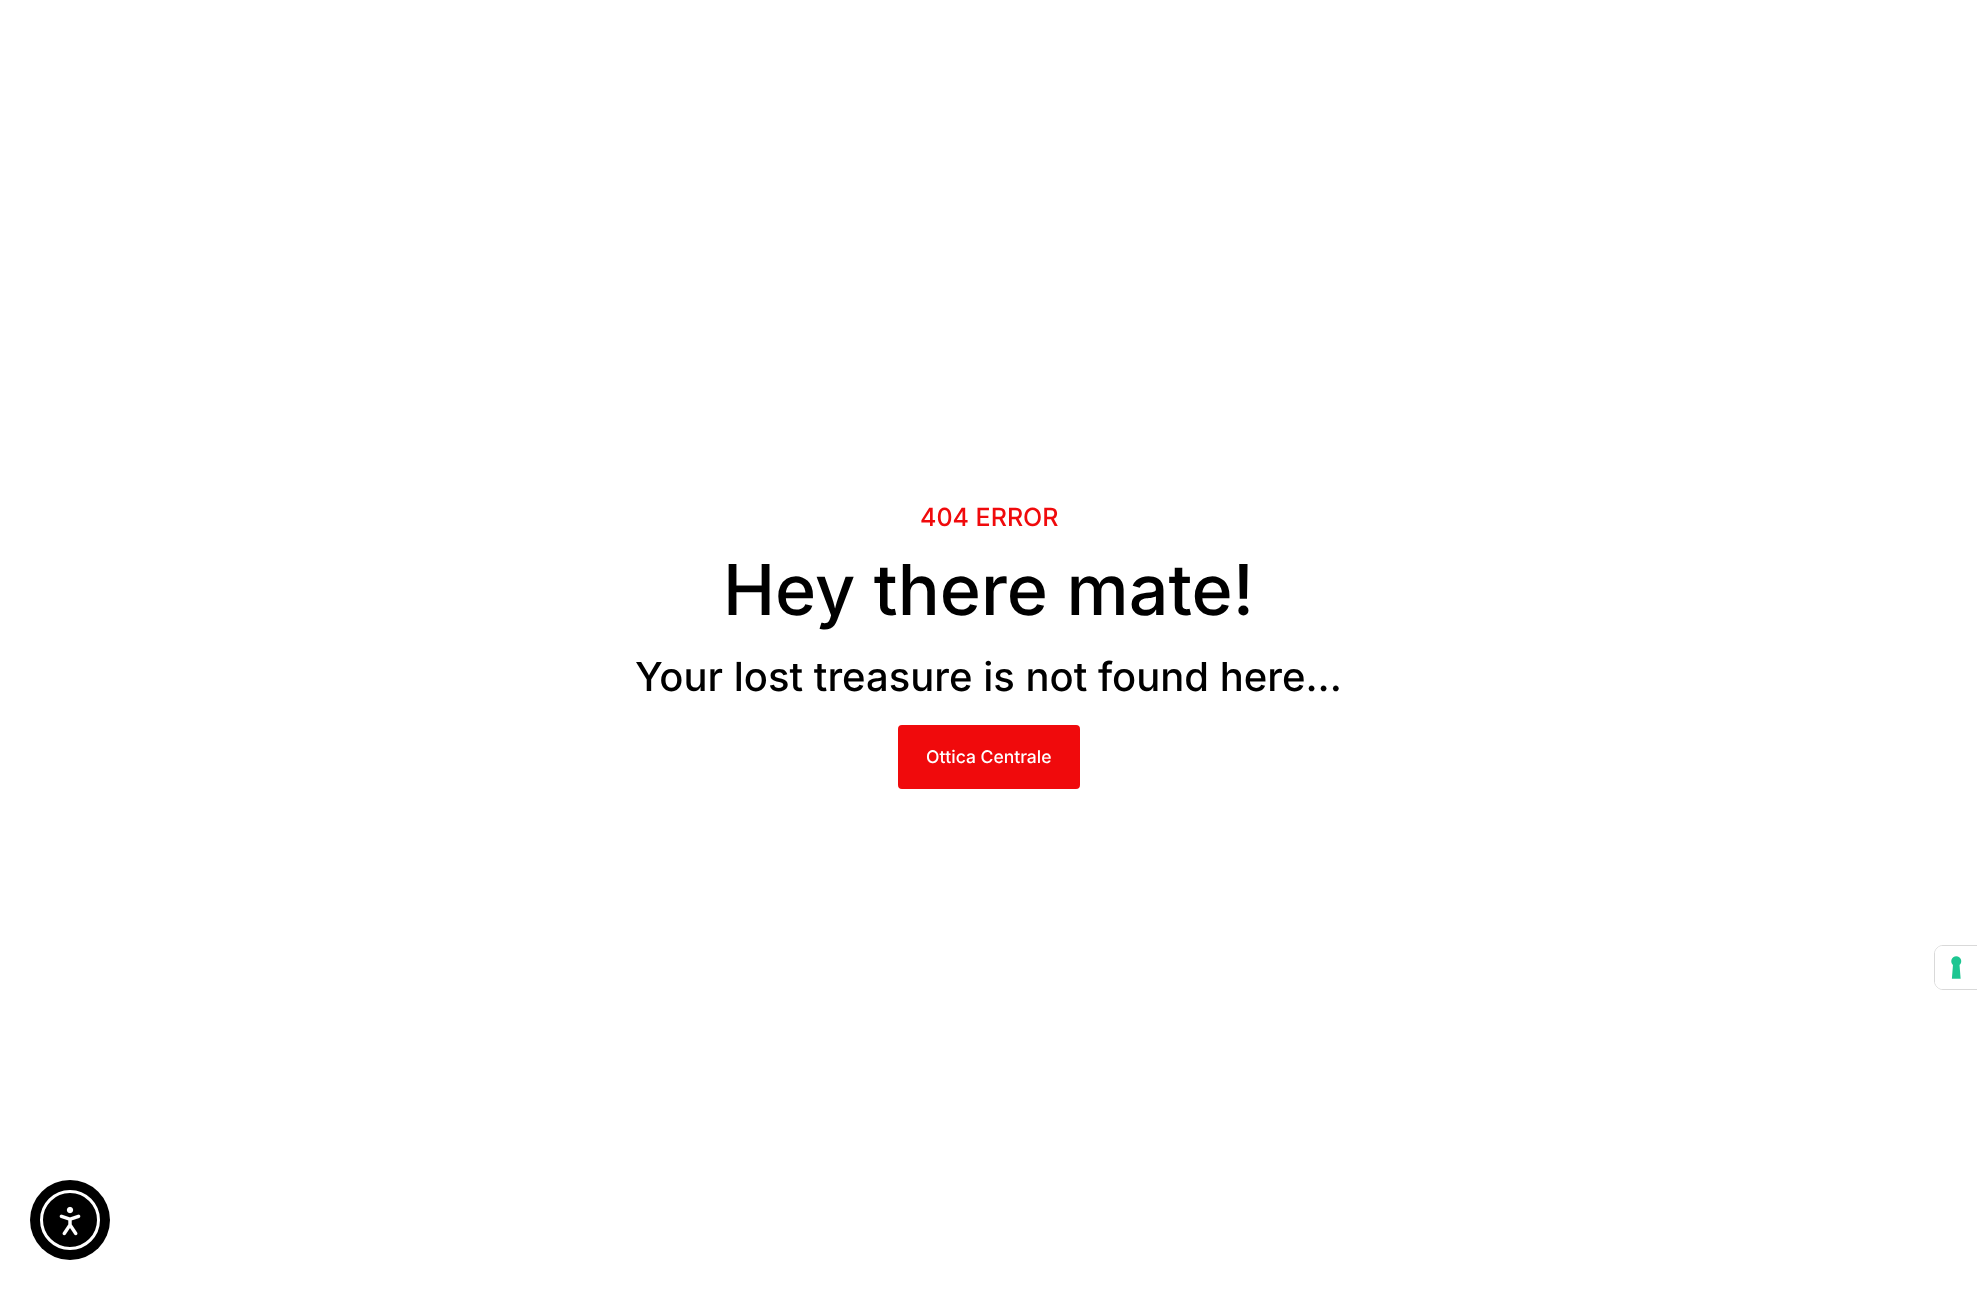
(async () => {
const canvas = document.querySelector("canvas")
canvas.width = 1977
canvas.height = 1289
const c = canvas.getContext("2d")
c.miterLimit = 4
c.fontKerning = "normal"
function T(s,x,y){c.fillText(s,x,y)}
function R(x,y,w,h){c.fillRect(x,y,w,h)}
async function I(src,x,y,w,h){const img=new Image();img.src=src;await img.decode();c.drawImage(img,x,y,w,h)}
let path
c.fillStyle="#fff"
R(0,0,1977,1289)
c.font="500 25px Inter"
c.fillStyle="#f00a0c"
T("404 ERROR",920,526)
c.font="500 70px Inter"
c.fillStyle="#000"
T("Hey there mate!",723,615)
c.font="500 40px Inter"
T("Your lost treasure is not found here...",635,691)
c.fillStyle="#f00a0c"
c.beginPath()
c.roundRect(899.5,726.5,179,61,2.5)
c.fill()
c.strokeStyle="#f00a0c"
c.lineWidth=3
c.stroke()
c.font="500 17.5px Inter"
c.fillStyle="#fff"
T("Ottica Centrale",926,763)
path = new Path2D("M1943 945.5h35.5v44h-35.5c-4.5 0-8.5-4-8.5-8.5v-27c0-4.5 4-8.5 8.5-8.5z")
c.strokeStyle="#d9d9d9"
c.lineWidth=1
c.stroke(path)
path = new Path2D("M1943 946h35v43h-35c-4.5 0-8-3.5-8-8v-27c0-4.5 3.5-8 8-8z")
c.fill(path)
await I("1.png",1951,956,11,23)
c.fillStyle="#000"
c.beginPath()
c.arc(70,1220,40,0,7)
c.fill()
c.beginPath()
c.arc(70,1220,28.5,0,7)
c.strokeStyle="#fff"
c.lineWidth=3
c.stroke()
await I("2.png",59,1206,22,30)
})()
